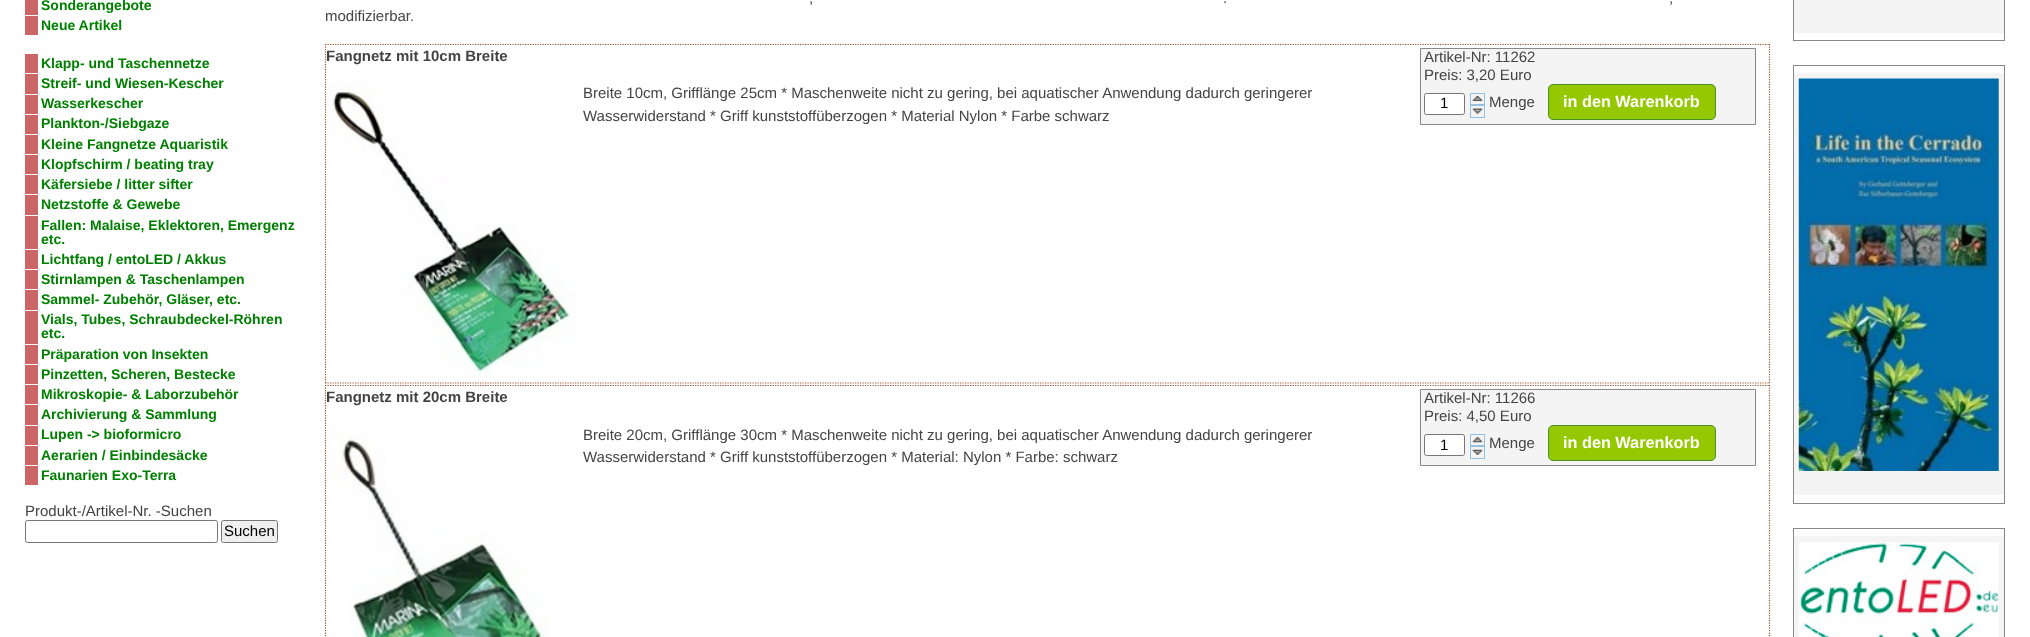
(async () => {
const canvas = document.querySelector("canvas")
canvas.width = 2030
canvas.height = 637
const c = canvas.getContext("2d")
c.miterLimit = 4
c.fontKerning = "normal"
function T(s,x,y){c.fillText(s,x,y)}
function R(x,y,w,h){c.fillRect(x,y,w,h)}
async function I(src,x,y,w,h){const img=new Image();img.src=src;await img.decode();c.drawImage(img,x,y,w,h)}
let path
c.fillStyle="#fff"
R(0,0,2030,637)
c.fillStyle="#c66"
R(25,0,13,15)
c.font="bold 14px Liberation Sans"
c.fillStyle="#008000"
T("Sonderangebote",41,10)
c.fillStyle="#c66"
R(25,16,13,19)
c.fillStyle="#008000"
T("Neue Artikel",41,30)
c.fillStyle="#c66"
R(25,54,13,19)
c.fillStyle="#008000"
T("Klapp- und Taschennetze",41,68)
c.fillStyle="#c66"
R(25,74,13,20)
c.fillStyle="#008000"
T("Streif- und Wiesen-Kescher",41,88)
c.fillStyle="#c66"
R(25,95,13,19)
c.fillStyle="#008000"
T("Wasserkescher",41,108)
c.fillStyle="#c66"
R(25,115,13,19)
c.fillStyle="#008000"
T("Plankton-/Siebgaze",41,128)
c.fillStyle="#c66"
R(25,135,13,19)
c.fillStyle="#008000"
T("Kleine Fangnetze Aquaristik",41,149)
c.fillStyle="#c66"
R(25,155,13,19)
c.fillStyle="#008000"
T("Klopfschirm / beating tray",41,169)
c.fillStyle="#c66"
R(25,175,13,19)
c.fillStyle="#008000"
T("Käfersiebe / litter sifter",41,189)
c.fillStyle="#c66"
R(25,195,13,20)
c.fillStyle="#008000"
T("Netzstoffe & Gewebe",41,209)
c.fillStyle="#c66"
R(25,216,13,33)
c.fillStyle="#008000"
T("Fallen: Malaise, Eklektoren, Emergenz",41,230)
T("etc.",41,244)
c.fillStyle="#c66"
R(25,250,13,19)
c.fillStyle="#008000"
T("Lichtfang / entoLED / Akkus",41,264)
c.fillStyle="#c66"
R(25,270,13,19)
c.fillStyle="#008000"
T("Stirnlampen & Taschenlampen",41,284)
c.fillStyle="#c66"
R(25,290,13,20)
c.fillStyle="#008000"
T("Sammel- Zubehör, Gläser, etc.",41,304)
c.fillStyle="#c66"
R(25,311,13,33)
c.fillStyle="#008000"
T("Vials, Tubes, Schraubdeckel-Röhren",41,324)
T("etc.",41,338)
c.fillStyle="#c66"
R(25,345,13,19)
c.fillStyle="#008000"
T("Präparation von Insekten",41,359)
c.fillStyle="#c66"
R(25,365,13,19)
c.fillStyle="#008000"
T("Pinzetten, Scheren, Bestecke",41,379)
c.fillStyle="#c66"
R(25,385,13,19)
c.fillStyle="#008000"
T("Mikroskopie- & Laborzubehör",41,399)
c.fillStyle="#c66"
R(25,405,13,20)
c.fillStyle="#008000"
T("Archivierung & Sammlung",41,419)
c.fillStyle="#c66"
R(25,426,13,19)
c.fillStyle="#008000"
T("Lupen -> bioformicro",41,439)
c.fillStyle="#c66"
R(25,446,13,19)
c.fillStyle="#008000"
T("Aerarien / Einbindesäcke",41,460)
c.fillStyle="#c66"
R(25,466,13,19)
c.fillStyle="#008000"
T("Faunarien Exo-Terra",41,480)
c.font="15px Liberation Sans"
c.fillStyle="#444"
T("Produkt-/Artikel-Nr. -Suchen",25,516)
c.beginPath()
c.roundRect(25.5,520.5,192,22,2)
c.strokeStyle="#767676"
c.stroke()
c.fillStyle="#efefef"
c.beginPath()
c.roundRect(221.5,520.5,56,22,2)
c.fill()
c.stroke()
c.fillStyle="#000"
T("Suchen",224,536)
c.fillStyle="#444"
T(",",809,3)
T(".",1223,3)
T(",",1669,3)
T("modifizierbar.",325,21)
path = new Path2D("M325 44.5h1445")
c.strokeStyle="#a0522d"
c.lineWidth=1.2
c.setLineDash([1.25,1.25])
c.stroke(path)
path = new Path2D("M1769.5 44v340")
c.stroke(path)
path = new Path2D("M325 383h1445")
c.stroke(path)
path = new Path2D("M325.5 44v340")
c.stroke(path)
c.font="bold 15px Liberation Sans"
T("Fangnetz mit 10cm Breite",326,61)
await I("1.png",326,82,250,294)
c.font="15px Liberation Sans"
T("Breite 10cm, Grifflänge 25cm * Maschenweite nicht zu gering, bei aquatischer Anwendung dadurch geringerer",583,98)
T("Wasserwiderstand * Griff kunststoffüberzogen * Material Nylon * Farbe schwarz",583,121)
c.fillStyle="#f4f4f4"
c.beginPath()
c.rect(1420.5,48.5,335,76)
c.fill()
c.strokeStyle="#888"
c.lineWidth=1
c.setLineDash([])
c.stroke()
c.fillStyle="#444"
T("Artikel-Nr: 11262",1424,62)
T("Preis: 3,20 Euro",1424,80)
c.fillStyle="#fff"
c.beginPath()
c.roundRect(1424.5,93.5,40,21,2)
c.fill()
c.strokeStyle="#767676"
c.stroke()
c.fillStyle="#000"
T("1",1440,108)
await I("2.png",1472,96,11,5)
c.strokeStyle="#94c0e3"
c.strokeRect(1470.5,93.5,14,11)
c.fillStyle="#444"
T("Menge",1489,107)
await I("3.png",1472,108,11,6)
c.strokeRect(1470.5,105.5,14,12)
c.fillStyle="#95c800"
c.beginPath()
c.roundRect(1548.5,84.5,167,35,4.5)
c.fill()
c.strokeStyle="#4b8f29"
c.stroke()
c.font="bold 16.25px Liberation Sans"
c.fillStyle="#fff"
T("in den Warenkorb",1563,107)
path = new Path2D("M325 385.5h1445")
c.strokeStyle="#a0522d"
c.lineWidth=1.2
c.setLineDash([1.25,1.25])
c.stroke(path)
path = new Path2D("M1769.5 385v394")
c.stroke(path)
path = new Path2D("M325.5 385v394")
c.stroke(path)
c.font="bold 15px Liberation Sans"
c.fillStyle="#444"
T("Fangnetz mit 20cm Breite",326,402)
await I("4.png",326,423,223,214)
c.font="15px Liberation Sans"
T("Breite 20cm, Grifflänge 30cm * Maschenweite nicht zu gering, bei aquatischer Anwendung dadurch geringerer",583,440)
T("Wasserwiderstand * Griff kunststoffüberzogen * Material: Nylon * Farbe: schwarz",583,462)
c.fillStyle="#f4f4f4"
c.beginPath()
c.rect(1420.5,389.5,335,76)
c.fill()
c.strokeStyle="#888"
c.lineWidth=1
c.setLineDash([])
c.stroke()
c.fillStyle="#444"
T("Artikel-Nr: 11266",1424,403)
T("Preis: 4,50 Euro",1424,421)
c.fillStyle="#fff"
c.beginPath()
c.roundRect(1424.5,434.5,40,21,2)
c.fill()
c.strokeStyle="#767676"
c.stroke()
c.fillStyle="#000"
T("1",1440,450)
await I("5.png",1472,437,11,6)
c.strokeStyle="#94c0e3"
c.strokeRect(1470.5,434.5,14,11)
c.fillStyle="#444"
T("Menge",1489,448)
await I("6.png",1472,449,11,6)
c.strokeRect(1470.5,446.5,14,12)
c.fillStyle="#95c800"
c.beginPath()
c.roundRect(1548.5,425.5,167,35,4.5)
c.fill()
c.strokeStyle="#4b8f29"
c.stroke()
c.font="bold 16.25px Liberation Sans"
c.fillStyle="#fff"
T("in den Warenkorb",1563,448)
c.strokeStyle="#888"
c.strokeRect(1793.5,-.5,211,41)
c.fillStyle="#f4f4f4"
R(1794,0,210,33)
c.strokeRect(1793.5,65.5,211,438)
R(1794,73,210,422)
await I("7.png",1798,78,201,393)
c.strokeRect(1793.5,528.5,211,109)
R(1794,536,210,101)
await I("8.png",1799,542,200,95)
})()
